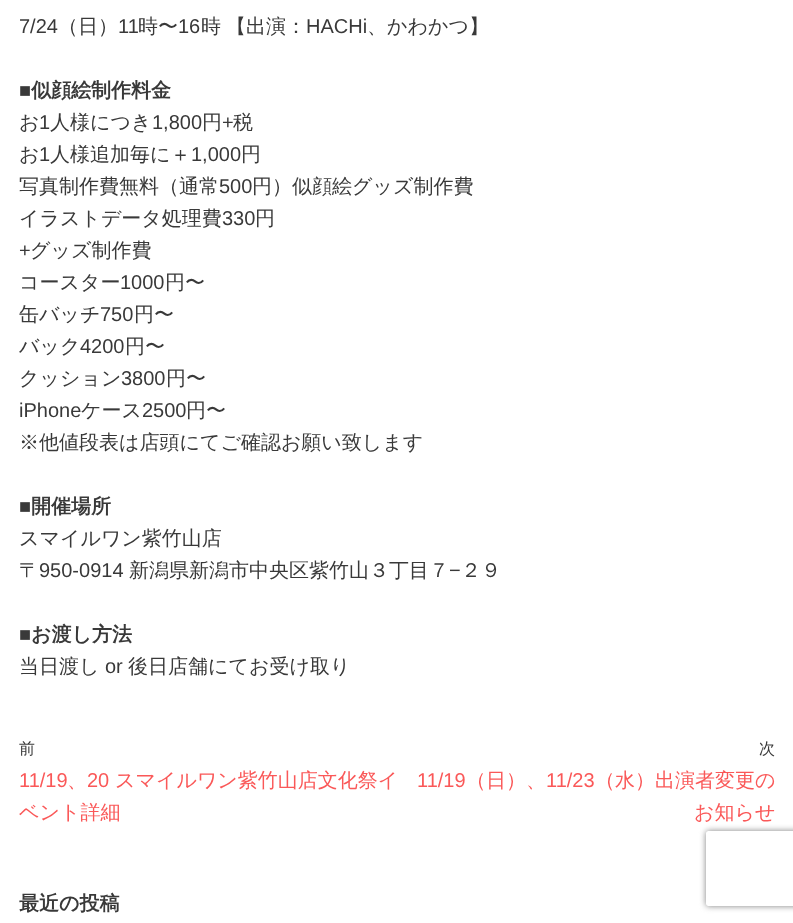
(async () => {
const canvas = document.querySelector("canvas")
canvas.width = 793
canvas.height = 923
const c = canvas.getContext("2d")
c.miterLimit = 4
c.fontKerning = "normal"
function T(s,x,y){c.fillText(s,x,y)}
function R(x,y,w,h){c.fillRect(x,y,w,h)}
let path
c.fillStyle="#fff"
R(0,0,793,923)
c.font="20px Liberation Sans"
c.fillStyle="#393939"
T("7/24",19,33)
c.font="500 20px WenQuanYi Zen Hei"
T("（日）",58,33)
c.font="20px Liberation Sans"
T("11",118,33)
c.font="500 20px WenQuanYi Zen Hei"
T("時〜",138,33)
c.font="20px Liberation Sans"
T("16",178,33)
c.font="500 20px WenQuanYi Zen Hei"
T("時",201,33)
T("【出演：",226,33)
c.font="20px Liberation Sans"
T("HACHi",306,33)
c.font="500 20px WenQuanYi Zen Hei"
T("、かわかつ】",367,33)
c.font="bold 20px Liberation Sans"
T("■",19,97)
c.font="bold 20px WenQuanYi Zen Hei"
T("似顔絵制作料金",31,97)
c.font="500 20px WenQuanYi Zen Hei"
T("お",19,129)
c.font="20px Liberation Sans"
T("1",39,129)
c.font="500 20px WenQuanYi Zen Hei"
T("人様につき",50,129)
c.font="20px Liberation Sans"
T("1,800",152,129)
c.font="500 20px WenQuanYi Zen Hei"
T("円",202,129)
c.font="20px Liberation Sans"
T("+",222,129)
c.font="500 20px WenQuanYi Zen Hei"
T("税",233,129)
T("お",19,161)
c.font="20px Liberation Sans"
T("1",39,161)
c.font="500 20px WenQuanYi Zen Hei"
T("人様追加毎に＋",50,161)
c.font="20px Liberation Sans"
T("1,000",191,161)
c.font="500 20px WenQuanYi Zen Hei"
T("円",241,161)
T("写真制作費無料（通常",19,193)
c.font="20px Liberation Sans"
T("500",219,193)
c.font="500 20px WenQuanYi Zen Hei"
T("円）似顔絵グッズ制作費",252,193)
T("イラストデータ処理費",19,225)
c.font="20px Liberation Sans"
T("330",222,225)
c.font="500 20px WenQuanYi Zen Hei"
T("円",255,225)
c.font="20px Liberation Sans"
T("+",19,257)
c.font="500 20px WenQuanYi Zen Hei"
T("グッズ制作費",30,257)
T("コースター",19,289)
c.font="20px Liberation Sans"
T("1000",120,289)
c.font="500 20px WenQuanYi Zen Hei"
T("円〜",165,289)
T("缶バッチ",19,321)
c.font="20px Liberation Sans"
T("750",100,321)
c.font="500 20px WenQuanYi Zen Hei"
T("円〜",134,321)
T("バック",19,353)
c.font="20px Liberation Sans"
T("4200",80,353)
c.font="500 20px WenQuanYi Zen Hei"
T("円〜",125,353)
T("クッション",19,385)
c.font="20px Liberation Sans"
T("3800",121,385)
c.font="500 20px WenQuanYi Zen Hei"
T("円〜",166,385)
c.font="20px Liberation Sans"
T("iPhone",19,417)
c.font="500 20px WenQuanYi Zen Hei"
T("ケース",81,417)
c.font="20px Liberation Sans"
T("2500",142,417)
c.font="500 20px WenQuanYi Zen Hei"
T("円〜",186,417)
T("※他値段表は店頭にてご確認お願い致します",19,449)
c.font="bold 20px Liberation Sans"
T("■",19,513)
c.font="bold 20px WenQuanYi Zen Hei"
T("開催場所",31,513)
c.font="500 20px WenQuanYi Zen Hei"
T("スマイルワン紫竹山店",19,545)
T("〒",19,577)
c.font="20px Liberation Sans"
T("950-0914",39,577)
c.font="500 20px WenQuanYi Zen Hei"
T("新潟県新潟市中央区紫竹山３丁目７",129,577)
c.font="20px Liberation Sans"
T("−",449,577)
c.font="500 20px WenQuanYi Zen Hei"
T("２９",461,577)
c.font="bold 20px Liberation Sans"
T("■",19,641)
c.font="bold 20px WenQuanYi Zen Hei"
T("お渡し方法",31,641)
c.font="500 20px WenQuanYi Zen Hei"
T("当日渡し",19,673)
c.font="20px Liberation Sans"
T("or",105,673)
c.font="500 20px WenQuanYi Zen Hei"
T("後日店舗にてお受け取り",128,673)
c.font="500 16px WenQuanYi Zen Hei"
T("前",19,754)
c.font="20px Liberation Sans"
c.fillStyle="#fa5858"
T("11/19",19,787)
c.font="500 20px WenQuanYi Zen Hei"
T("、",67,787)
c.font="20px Liberation Sans"
T("20",87,787)
c.font="500 20px WenQuanYi Zen Hei"
T("スマイルワン紫竹山店文化祭イ",115,787)
T("ベント詳細",19,819)
c.font="500 16px WenQuanYi Zen Hei"
c.fillStyle="#393939"
T("次",759,754)
c.font="20px Liberation Sans"
c.fillStyle="#fa5858"
T("11/19",417,787)
c.font="500 20px WenQuanYi Zen Hei"
T("（日）、",466,787)
c.font="20px Liberation Sans"
T("11/23",546,787)
c.font="500 20px WenQuanYi Zen Hei"
T("（水）出演者変更の",595,787)
T("お知らせ",694,819)
c.font="bold 20px WenQuanYi Zen Hei"
c.fillStyle="#393939"
T("最近の投稿",19,910)
c.save()
path = new Path2D("M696 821h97v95h-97zm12.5 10h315c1.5 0 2.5 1 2.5 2.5v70c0 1.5-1 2.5-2.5 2.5h-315c-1.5 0-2.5-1-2.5-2.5v-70c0-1.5 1-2.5 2.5-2.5z")
c.clip(path,"evenodd")
c.fillStyle="#808080"
c.filter="blur(3px)"
c.beginPath()
c.roundRect(706,831,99,75,2.5)
c.fill()
c.filter="none"
c.restore()
})()
